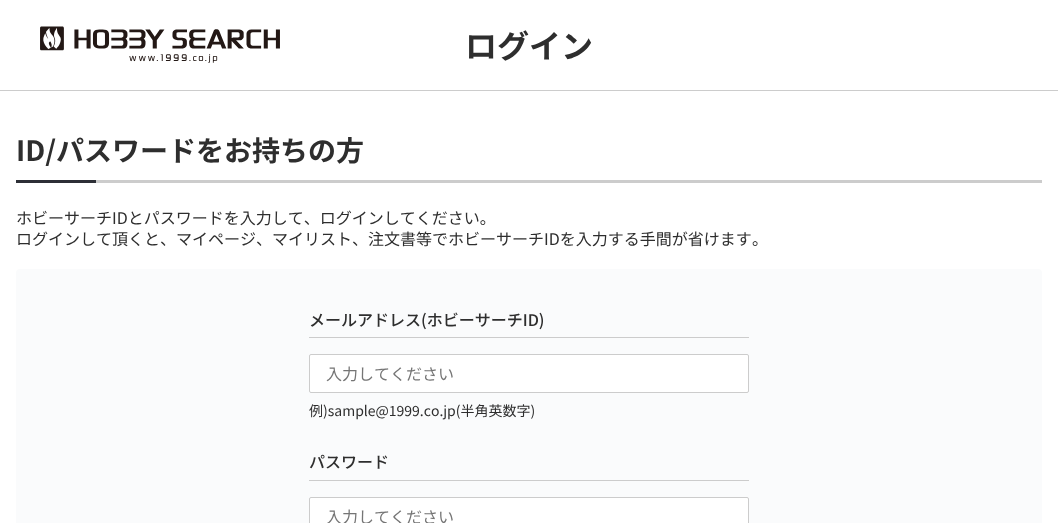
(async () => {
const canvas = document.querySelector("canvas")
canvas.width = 1058
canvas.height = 523
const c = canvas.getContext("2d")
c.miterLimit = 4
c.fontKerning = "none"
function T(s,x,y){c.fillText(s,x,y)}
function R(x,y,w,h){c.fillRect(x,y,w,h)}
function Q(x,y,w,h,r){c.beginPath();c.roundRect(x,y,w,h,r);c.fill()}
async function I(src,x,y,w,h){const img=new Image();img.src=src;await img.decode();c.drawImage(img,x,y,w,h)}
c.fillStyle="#fff"
R(0,0,1058,523)
c.fillStyle="#ccc"
R(0,90,1058,1)
await I("1.png",40,26,240,37)
c.font="bold 32px Noto Sans JP"
c.fillStyle="#2e2e2e"
T("ログイン",465,58)
c.fillStyle="#ccc"
R(96,180,946,3)
c.font="bold 28px Noto Sans JP"
c.fillStyle="#2e2e2e"
T("ID/パスワードをお持ちの方",16,161)
c.fillStyle="#2d2f36"
R(16,180,80,3)
c.font="16px Noto Sans JP"
c.fillStyle="#2e2e2e"
T("ホビーサーチIDとパスワードを入力して、ログインしてください。",16,224)
T("ログインして頂くと、マイページ、マイリスト、注文書等でホビーサーチIDを入力する手間が省けます",16,245)
T("。",752,245)
c.fillStyle="#fafbfc"
Q(16,269,1026,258,4)
c.fillStyle="#ccc"
R(309,337,440,1)
c.font="500 16px Noto Sans JP"
c.fillStyle="#2e2e2e"
T("メールアドレス(ホビーサーチID)",309,326)
c.fillStyle="#fff"
c.beginPath()
c.roundRect(309.5,354.5,439,38,1.5)
c.fill()
c.strokeStyle="#ccc"
c.stroke()
c.font="16px Noto Sans JP"
c.fillStyle="#757575"
T("入力してください",326,380)
c.font="14px Noto Sans JP"
c.fillStyle="#2e2e2e"
T("例)sample@1999.co.jp(半角英数字)",309,416)
c.fillStyle="#ccc"
R(309,480,440,1)
c.font="500 16px Noto Sans JP"
c.fillStyle="#2e2e2e"
T("パスワード",309,468)
c.fillStyle="#fff"
c.beginPath()
c.roundRect(309.5,497.5,439,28,1.5)
c.fill()
c.stroke()
c.font="16px Noto Sans JP"
c.fillStyle="#757575"
T("入力してください",326,523)
})()
